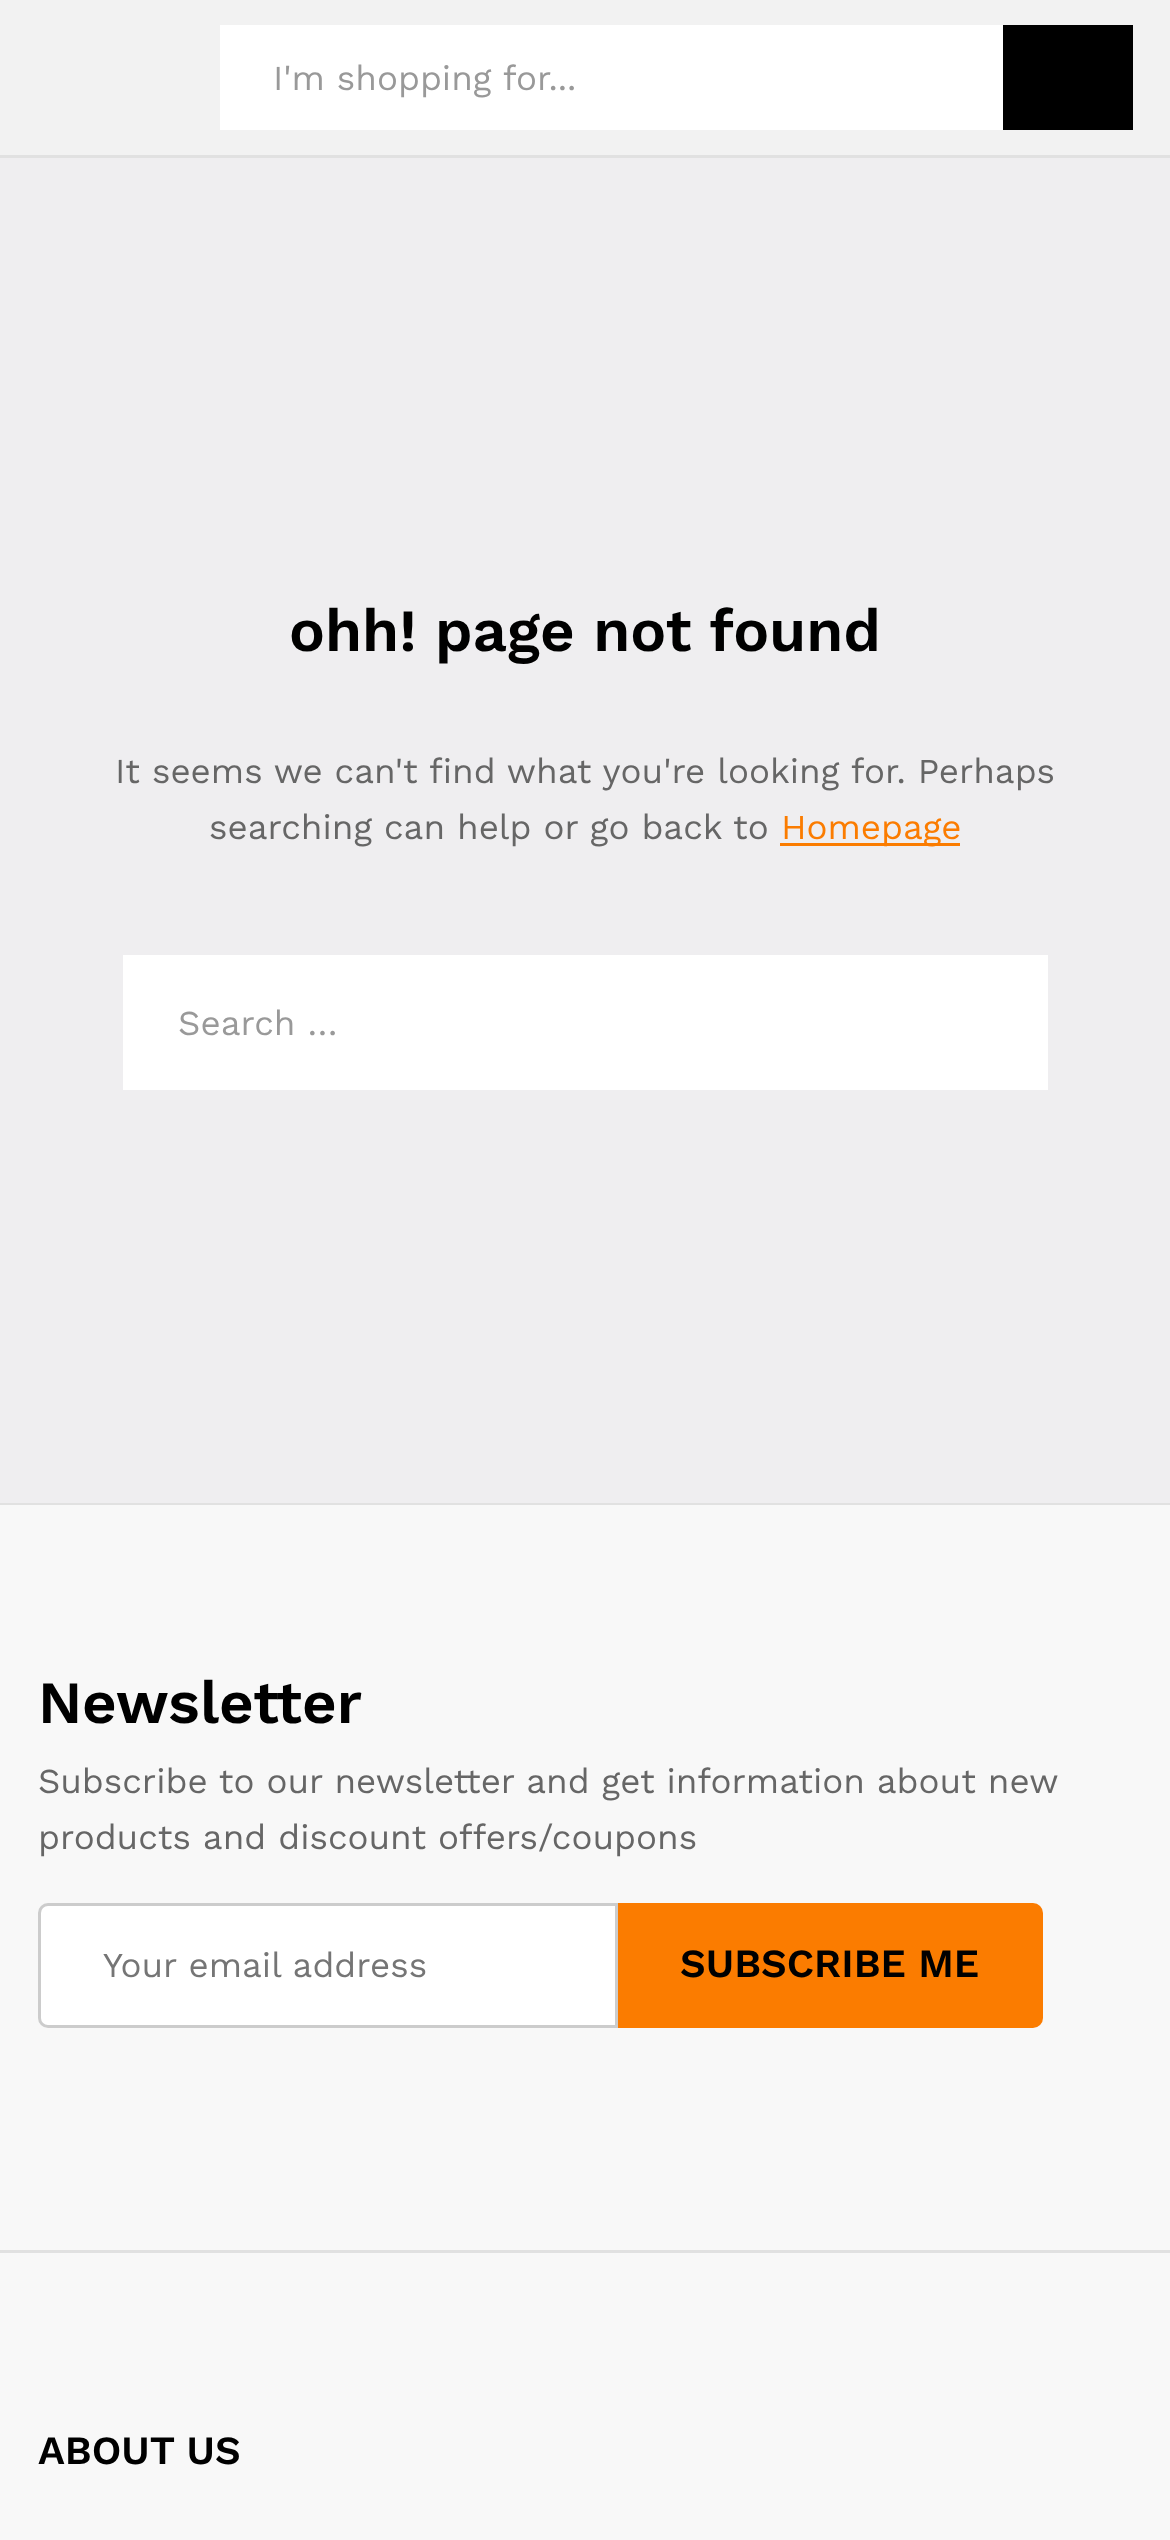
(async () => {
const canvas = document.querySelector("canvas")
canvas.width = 1170
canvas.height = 2540
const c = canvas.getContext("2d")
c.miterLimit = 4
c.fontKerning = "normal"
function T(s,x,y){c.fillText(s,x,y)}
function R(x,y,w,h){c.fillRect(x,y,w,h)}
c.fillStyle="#efeef0"
R(0,0,1170,2540)
c.fillStyle="#f2f2f2"
R(0,0,1170,155)
c.fillStyle="#e1e1e1"
R(0,155,1170,3)
c.fillStyle="#fff"
R(220,25,783,105)
c.font="35px Work Sans"
c.fillStyle="#999"
T("I'm shopping for...",273,90)
c.fillStyle="#000"
R(1003,25,130,105)
c.font="600 60px Work Sans"
T("ohh! page not found",289,651)
c.font="35px Work Sans"
c.fillStyle="#666"
T("It seems we can't find what you're looking for. Perhaps",115,783)
T("searching can help or go back to",209,839)
c.fillStyle="#fb7c00"
R(780,843,180,3)
T("Homepage",781,839)
c.fillStyle="#fff"
R(123,955,925,135)
c.fillStyle="#999"
T("Search …",178,1035)
c.fillStyle="#e1e1e1"
R(0,1503,1170,2)
c.fillStyle="#f8f8f8"
R(0,1505,1170,1035)
c.fillStyle="#e1e1e1"
R(0,2250,1170,3)
c.font="600 60px Work Sans"
c.fillStyle="#000"
T("Newsletter",38,1723)
c.font="35px Work Sans"
c.fillStyle="#666"
T("Subscribe to our newsletter and get information about new",38,1793)
T("products and discount offers/coupons",38,1849)
c.fillStyle="#fff"
c.beginPath()
c.roundRect(39.5,1904.5,577,122,[8.5,0,0,8.5])
c.fill()
c.strokeStyle="#ccc"
c.lineWidth=3
c.stroke()
c.fillStyle="#757575"
T("Your email address",103,1977)
c.fillStyle="#fb7c00"
c.beginPath()
c.roundRect(618,1903,425,125,[0,10,10,0])
c.fill()
c.font="600 40px Work Sans"
c.fillStyle="#000"
T("SUBSCRIBE ME",680,1977)
T("ABOUT US",38,2464)
})()
